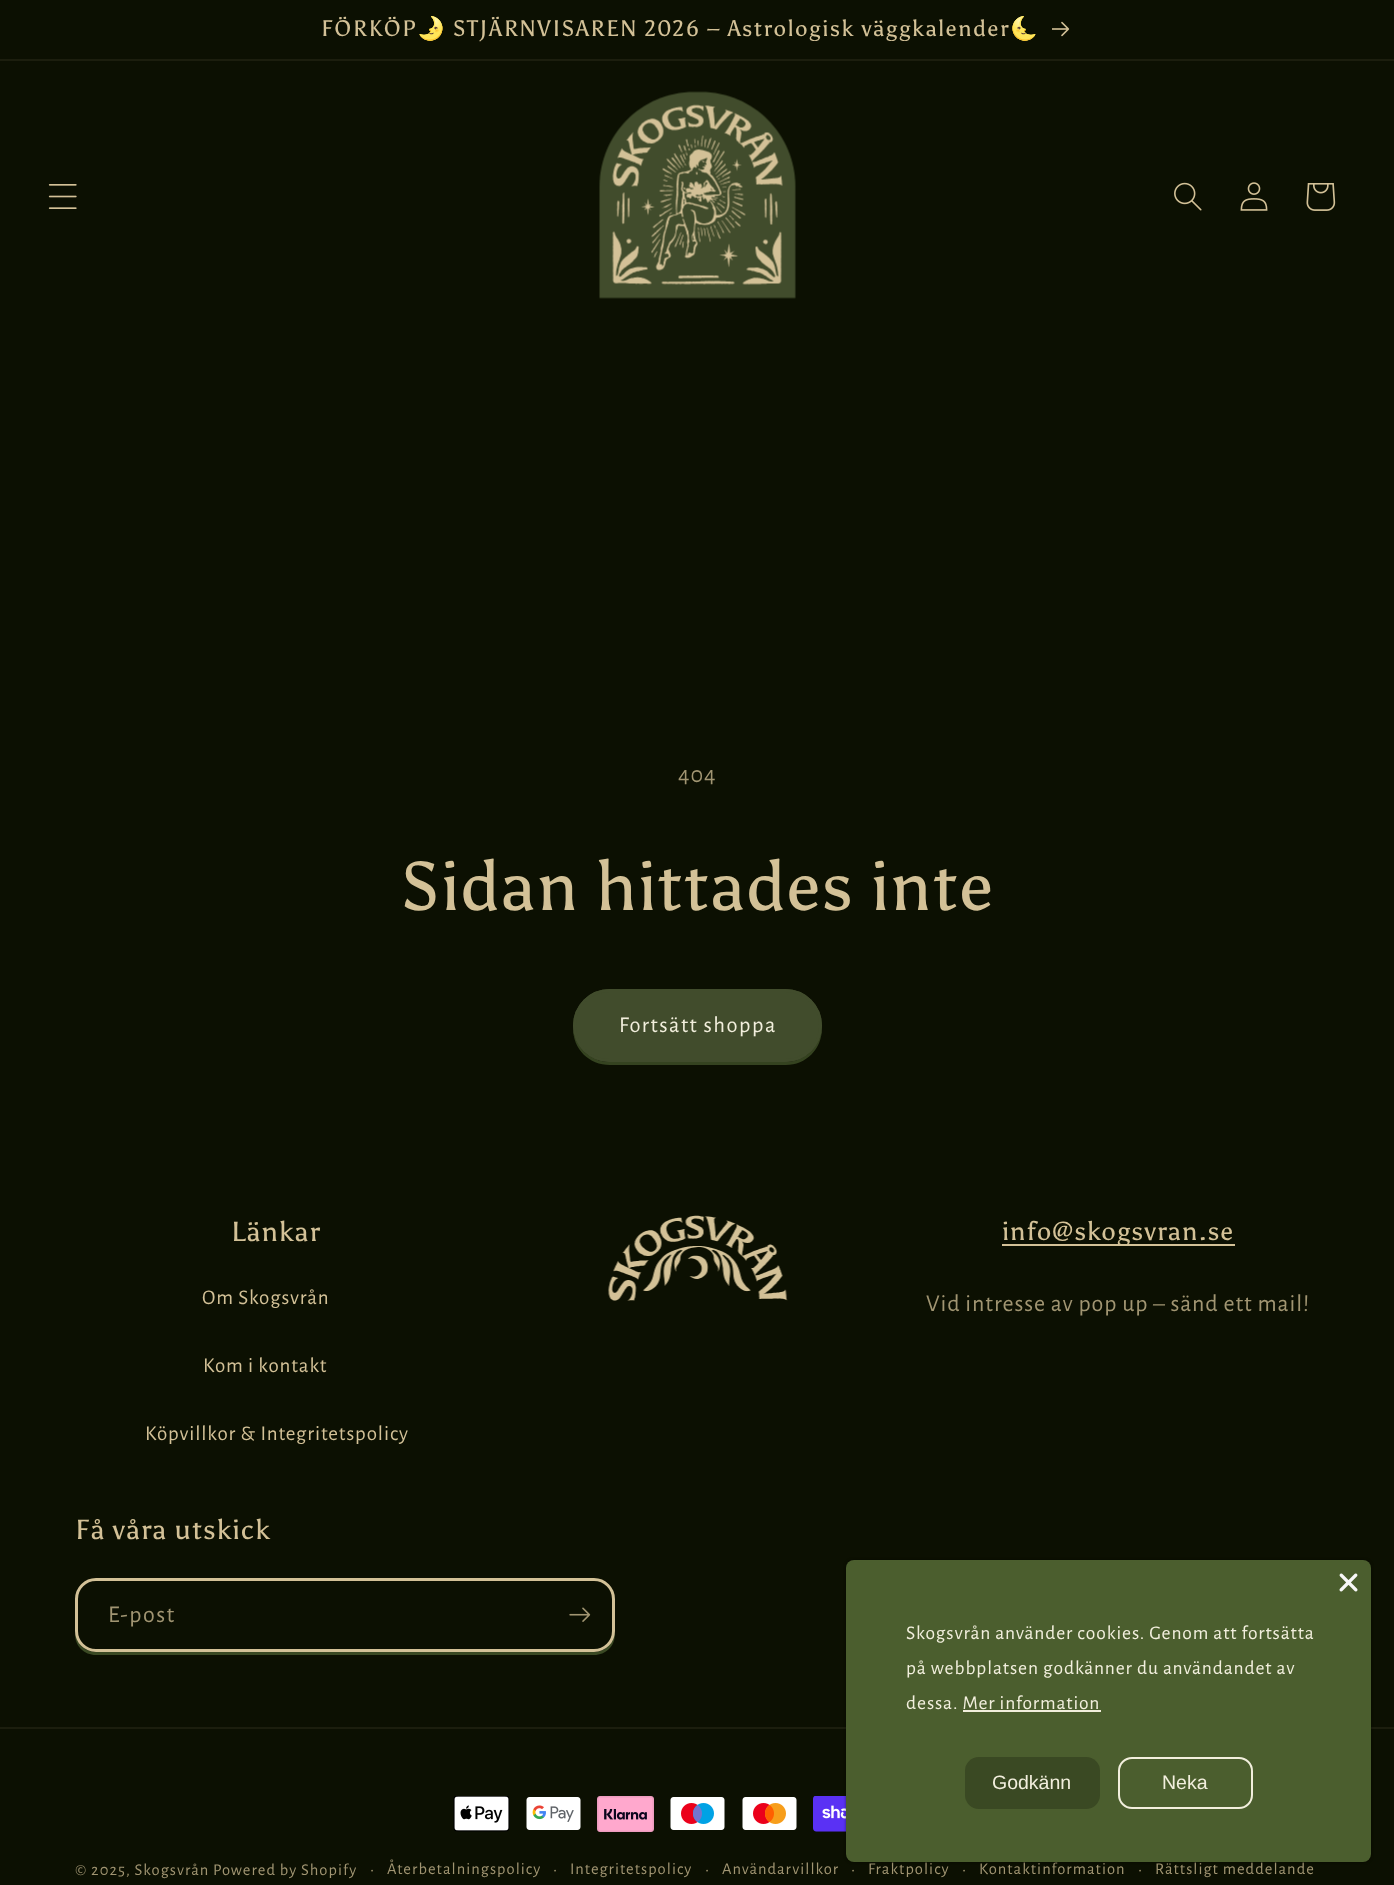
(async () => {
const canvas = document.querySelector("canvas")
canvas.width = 1394
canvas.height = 1885
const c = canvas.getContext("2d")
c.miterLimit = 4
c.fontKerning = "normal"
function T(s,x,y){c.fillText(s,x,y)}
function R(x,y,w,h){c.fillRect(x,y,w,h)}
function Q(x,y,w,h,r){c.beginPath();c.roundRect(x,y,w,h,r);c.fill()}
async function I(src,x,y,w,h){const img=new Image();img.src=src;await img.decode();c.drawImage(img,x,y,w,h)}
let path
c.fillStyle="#0c1002"
R(0,0,1394,1885)
c.fillStyle="#1c1e0e"
R(0,59,1394,2)
c.letterSpacing="1.5px"
c.font="22.4px Asul"
c.fillStyle="#d3c197"
T("FÖRKÖP",321,36)
c.font="22.4px Noto Color Emoji"
T("🌛",417,36)
c.font="22.4px Asul"
T("STJÄRNVISAREN 2026 – Astrologisk väggkalender",453,36)
c.font="22.4px Noto Color Emoji"
T("🌜",1010,36)
await I("1.png",1052,21,18,16)
await I("2.png",48,184,29,25)
await I("3.png",599,91,197,208)
await I("4.png",1174,182,28,29)
await I("5.png",1240,182,28,29)
await I("6.png",1306,183,30,28)
c.letterSpacing="0.9px"
c.font="24px Alegreya Sans"
c.fillStyle="#a19572"
T("404",678,782)
c.letterSpacing="1px"
c.font="69px Asul"
c.fillStyle="#d3c197"
T("Sidan hittades inte",401,910)
c.fillStyle="#354320"
path = new Path2D("M573 1027v1c0 21 16 37 37 37h176c20 0 36-16 36-37v-1c-1 19-17 35-37 35h-175c-20 0-36-16-37-35z")
c.fill(path)
c.fillStyle="#414c2c"
Q(573,989,249,73,36.5)
c.beginPath()
c.roundRect(574.5,990.5,246,70,35)
c.strokeStyle="#414c2c"
c.lineWidth=3
c.stroke()
c.letterSpacing="1.5px"
c.font="22.5px Alegreya Sans"
c.fillStyle="#f2efdd"
T("Fortsätt shoppa",619,1032)
c.letterSpacing="1px"
c.font="27.5px Asul"
c.fillStyle="#d3c197"
T("Länkar",231,1241)
c.letterSpacing="0.9px"
c.font="21px Alegreya Sans"
T("Om Skogsvrån",202,1304)
T("Kom i kontakt",203,1372)
T("Köpvillkor & Integritetspolicy",145,1440)
await I("7.png",608,1215,180,86)
R(1002,1244,233,2)
c.letterSpacing="1px"
c.font="25.9px Asul"
T("info@skogsvran.se",1002,1240)
c.letterSpacing="0.9px"
c.font="24px Alegreya Sans"
c.fillStyle="#a19572"
T("Vid intresse av pop up – sänd ett mail!",926,1311)
c.letterSpacing="1px"
c.font="27.5px Asul"
c.fillStyle="#d3c197"
T("Få våra utskick",75,1539)
c.fillStyle="#3a4923"
path = new Path2D("M75 1630v4c0 12 9 21 21 21h498c12 0 21-9 21-21v-4c0 12-9 22-21 22h-498c-12 0-21-10-21-22z")
c.fill(path)
c.beginPath()
c.roundRect(76.5,1579.5,537,71,19.5)
c.strokeStyle="#d3c197"
c.stroke()
c.letterSpacing="1.5px"
c.font="24px Alegreya Sans"
c.fillStyle="#a19572"
T("E-post",108,1622)
await I("8.png",569,1607,22,15)
c.fillStyle="#1c1e0e"
R(0,1727,1394,2)
await I("9.png",453,1796,57,36)
await I("10.png",526,1797,55,33)
await I("11.png",597,1796,57,36)
await I("12.png",670,1797,55,33)
await I("13.png",742,1797,55,33)
await I("14.png",813,1796,33,36)
c.letterSpacing="1.05px"
c.font="16.5px Alegreya Sans"
c.fillStyle="#a19572"
T("© 2025, Skogsvrån Powered by Shopify",75,1875)
c.font="18px Alegreya Sans"
T("·",370,1875)
c.font="16.5px Alegreya Sans"
T("Återbetalningspolicy",387,1874)
c.font="18px Alegreya Sans"
T("·",553,1875)
c.font="16.5px Alegreya Sans"
T("Integritetspolicy",570,1874)
c.font="18px Alegreya Sans"
T("·",705,1875)
c.font="16.5px Alegreya Sans"
T("Användarvillkor",722,1874)
c.font="18px Alegreya Sans"
T("·",851,1875)
c.font="16.5px Alegreya Sans"
T("Fraktpolicy",868,1874)
c.font="18px Alegreya Sans"
T("·",962,1875)
c.font="16.5px Alegreya Sans"
T("Kontaktinformation",979,1874)
c.font="18px Alegreya Sans"
T("·",1138,1875)
c.font="16.5px Alegreya Sans"
T("Rättsligt meddelande",1155,1874)
c.fillStyle="#00000080"
c.filter="blur(1.5px)"
c.beginPath()
c.roundRect(846,1560,525,302,8)
c.fill()
c.filter="none"
c.fillStyle="#4b5e2e"
Q(846,1560,525,302,8)
await I("15.png",1339,1573,19,19)
c.letterSpacing="0.9px"
c.font="19.5px Alegreya Sans"
c.fillStyle="#f2efdd"
T("Skogsvrån använder cookies. Genom att fortsätta",906,1639)
T("på webbplatsen godkänner du användandet av",906,1674)
T("dessa. Mer information",906,1709)
R(963,1710,138,2)
c.fillStyle="#3a4923"
Q(965,1757,135,52,14)
c.letterSpacing="0px"
c.font="19.5px Liberation Sans"
c.fillStyle="#f2efdd"
T("Godkänn",992,1789)
c.beginPath()
c.roundRect(1119,1758,133,50,13)
c.strokeStyle="#f2efdd"
c.lineWidth=2
c.stroke()
T("Neka",1162,1789)
})()
